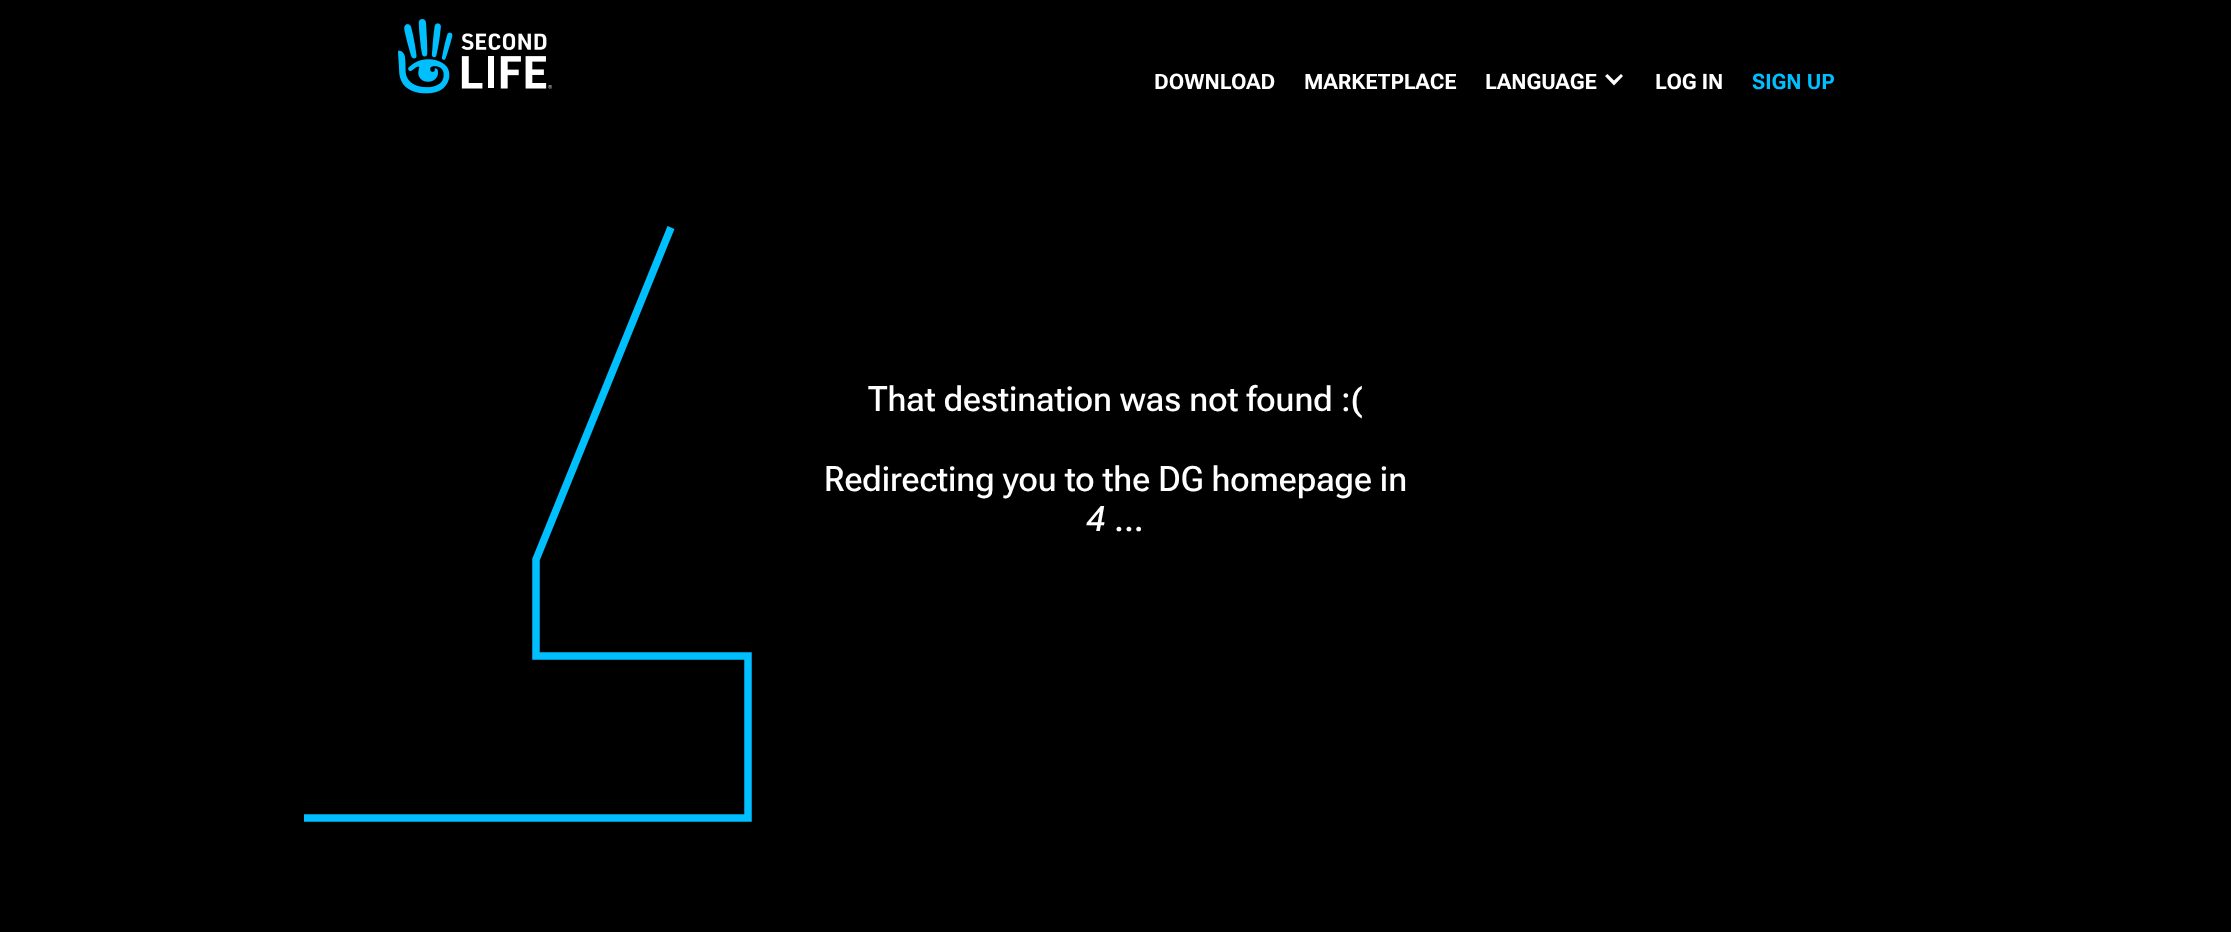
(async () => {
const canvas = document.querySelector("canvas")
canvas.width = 2231
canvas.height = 932
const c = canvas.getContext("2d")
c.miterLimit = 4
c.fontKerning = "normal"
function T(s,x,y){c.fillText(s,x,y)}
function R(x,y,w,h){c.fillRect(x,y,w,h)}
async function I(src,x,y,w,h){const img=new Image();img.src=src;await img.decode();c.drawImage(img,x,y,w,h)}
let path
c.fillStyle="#000"
R(0,0,2231,932)
await I("1.png",398,19,155,75)
c.font="bold 21.25px Roboto Flex"
c.fillStyle="#fff"
T("DOWNLOAD",1154,89)
T("MARKETPLACE",1304,89)
T("LANGUAGE",1485,89)
path = new Path2D("M1621 74l-7 6.5l-6.5-6.5l-2.5 2l9 9.5l9-9.5z")
c.fill(path)
T("LOG IN",1655,89)
c.fillStyle="#00bfff"
T("SIGN UP",1752,89)
path = new Path2D("M304 818h444v-162h-212v-96.5l135-332")
c.strokeStyle="#00bfff"
c.lineWidth=7.5
c.stroke(path)
c.font="500 35px Roboto Flex"
c.fillStyle="#fff"
T("That destination was not found :(",868,411)
T("Redirecting you to the DG homepage in",824,491)
c.font="italic 500 35px Roboto Flex"
T("4",1087,531)
c.font="500 35px Roboto Flex"
T("...",1114,531)
})()
